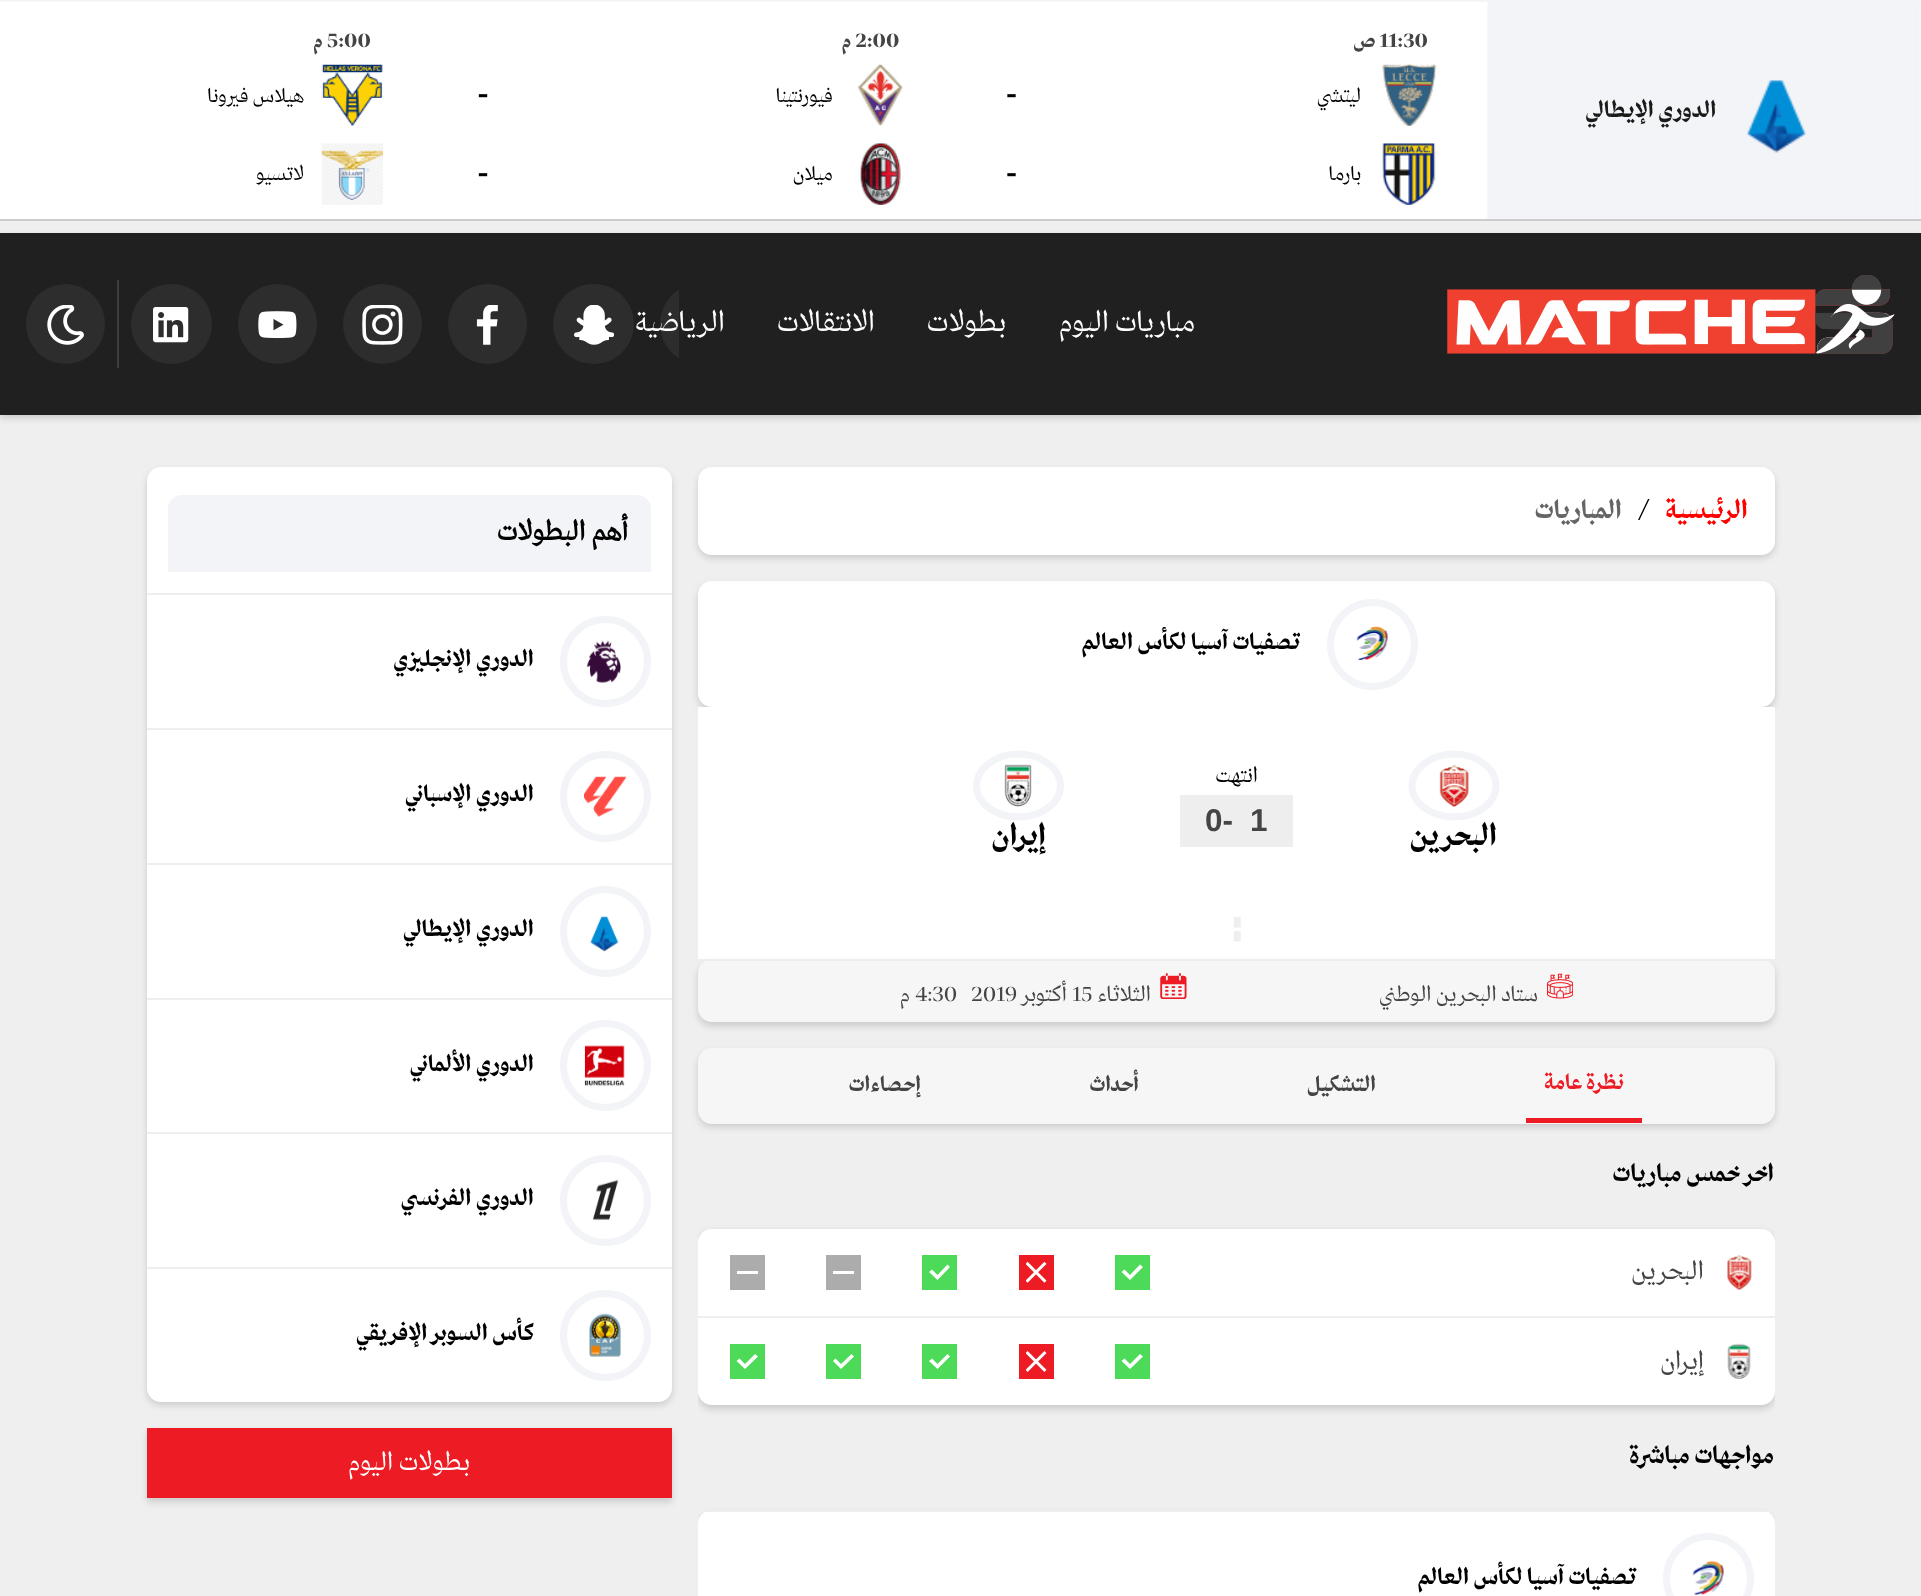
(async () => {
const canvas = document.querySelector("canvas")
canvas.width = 1921
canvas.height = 1596
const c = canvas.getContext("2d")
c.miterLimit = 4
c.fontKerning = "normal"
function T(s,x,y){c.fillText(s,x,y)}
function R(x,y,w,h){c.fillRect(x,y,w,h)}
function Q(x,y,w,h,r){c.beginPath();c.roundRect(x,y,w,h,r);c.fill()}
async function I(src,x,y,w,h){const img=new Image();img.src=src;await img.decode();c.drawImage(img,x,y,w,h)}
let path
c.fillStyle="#efefef"
R(0,0,1921,1596)
c.fillStyle="#fff"
R(0,0,1921,219)
await I("1.png",0,0,1921,219)
c.fillStyle="#ccc"
R(0,219,1921,2)
c.fillStyle="#00000026"
c.filter="blur(3.5px)"
c.beginPath()
c.rect(0,236,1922,182)
c.fill()
c.filter="none"
c.fillStyle="#202020"
R(0,233,1921,182)
await I("2.png",1447,275,448,79)
c.fillStyle="#2d2d2d"
Q(660,284,79,80,39.5)
Q(553,284,81,80,40)
await I("3.png",574,305,40,40)
Q(448,284,79,80,39.5)
await I("4.png",476,305,22,40)
Q(343,284,79,80,39.5)
await I("5.png",362,305,41,40)
Q(238,284,79,80,39.5)
await I("6.png",258,311,39,28)
Q(131,284,81,80,40)
await I("7.png",153,307,36,36)
Q(26,284,79,80,39.5)
c.fillStyle="#3e3e3e"
R(117,280,2,88)
await I("8.png",47,305,37,40)
c.fillStyle="#202020"
R(679,284,60,80)
c.direction="rtl"
c.font="35px '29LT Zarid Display'"
c.fillStyle="#fff"
T("مباريات اليوم",1195,331)
T("بطولات",1006,331)
T("الانتقالات",875,331)
T("الرياضية",725,331)
c.fillStyle="#00000026"
c.filter="blur(3.5px)"
c.beginPath()
c.roundRect(698,471,1077,87,14)
c.fill()
c.filter="none"
c.fillStyle="#fff"
Q(698,467,1077,88,14)
c.font="bold 31.5px '29LT Zarid Display'"
c.fillStyle="#f00"
T("الرئيسية",1748,518)
c.fillStyle="#000"
path = new Path2D("M1648 499h1.5l-10 21h-1.5z")
c.fill(path)
c.fillStyle="#656565"
T("المباريات",1622,518)
c.fillStyle="#00000026"
c.filter="blur(3.5px)"
c.beginPath()
c.roundRect(698,585,1077,126,14)
c.fill()
c.filter="none"
c.fillStyle="#fff"
Q(698,581,1077,126,14)
c.beginPath()
c.arc(1372.5,644.5,42,0,7)
c.strokeStyle="#f3f4f7"
c.lineWidth=7
c.stroke()
await I("9.png",1356,626,32,35)
c.save()
c.beginPath()
c.rect(1082,627,218,35)
c.clip()
c.font="bold 28px '29LT Zarid Display'"
c.fillStyle="#000"
T("تصفيات آسيا لكأس العالم",1300,649)
c.restore()
R(698,707,1077,252)
c.font="26.25px '29LT Zarid Display'"
c.fillStyle="#000"
T("انتهت",1258,782)
c.fillStyle="#eee"
R(1180,795,113,52)
c.direction="ltr"
c.font="bold 31.5px Liberation Sans"
c.fillStyle="#444"
T("1",1250,831)
T("0-",1205,831)
path = new Path2D("M1454 754c23.5 0 42 14.5 42 32c0 17-18.5 31-42 31c-23 0-42-14-42-31c0-17.5 19-32 42-32z")
c.stroke(path)
await I("10.png",1439,764,30,43)
c.direction="rtl"
c.font="bold 37px '29LT Zarid Display'"
c.fillStyle="#000"
T("البحرين",1497,845)
path = new Path2D("M1018.5 754c23 0 42 14.5 42 32c0 17-19 31-42 31c-23 0-42-14-42-31c0-17.5 19-32 42-32z")
c.stroke(path)
await I("11.png",1004,764,28,43)
T("إيران",1046,845)
path = new Path2D("M1239 917v10.5m0 3.5v10.5m-3.5-24.5v10.5m0 3.5v10.5")
c.strokeStyle="#eee"
c.lineWidth=3.5
c.stroke(path)
c.fillStyle="#00000026"
c.filter="blur(3.5px)"
c.beginPath()
c.roundRect(698,963,1077,63,14)
c.fill()
c.filter="none"
c.fillStyle="#f6f6f6"
Q(698,959,1077,63,14)
c.fillStyle="#eee"
R(705,959,1063,2)
await I("12.png",1547,973,26,26)
c.font="26.25px '29LT Zarid Display'"
c.fillStyle="#444"
T("ستاد البحرين الوطني",1538,1001)
await I("13.png",1160,973,27,26)
T("الثلاثاء",1151,1001)
c.direction="ltr"
T("15",1072,1001)
c.direction="rtl"
T("أكتوبر",1067,1001)
c.direction="ltr"
T("2019",971,1001)
T("4:30",915,1001)
c.direction="rtl"
T("م",910,1001)
c.fillStyle="#00000026"
c.filter="blur(3.5px)"
c.beginPath()
c.roundRect(698,1052,1077,75,14)
c.fill()
c.filter="none"
c.fillStyle="#f6f6f6"
Q(698,1048,1077,76,14)
c.fillStyle="#ed1c24"
R(1526,1118,116,5)
c.font="bold 26.25px '29LT Zarid Display'"
T("نظرة عامة",1624,1089)
c.fillStyle="#444"
T("التشكيل",1376,1091)
T("أحداث",1139,1091)
T("إحصاءات",921,1091)
c.font="bold 29.75px '29LT Zarid Display'"
c.fillStyle="#000"
T("اخر خمس مباريات",1774,1181)
c.save()
c.beginPath()
c.rect(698,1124,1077,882)
c.clip()
c.fillStyle="#00000026"
c.filter="blur(3.5px)"
c.beginPath()
c.roundRect(698,1232,1077,177,14)
c.fill()
c.filter="none"
c.restore()
c.fillStyle="#fff"
Q(698,1229,1077,176,14)
c.fillStyle="#eee"
R(698,1316,1077,2)
await I("14.png",1727,1255,25,35)
c.font="31.5px '29LT Zarid Display'"
c.fillStyle="#444"
T("البحرين",1704,1279)
c.fillStyle="#4eda59"
R(1115,1255,35,35)
c.fillStyle="#fff"
path = new Path2D("M1140 1264.5l-10 10.5l-5.5-5.5l-3 2.5l8.5 8l13-13z")
c.fill(path)
c.fillStyle="#ed1c24"
R(1019,1255,35,35)
await I("15.png",1026,1262,21,21)
c.fillStyle="#4eda59"
R(922,1255,35,35)
c.fillStyle="#fff"
path = new Path2D("M947.5 1264.5l-10 10.5l-5.5-5.5l-3 2.5l8.5 8l12.5-13z")
c.fill(path)
c.fillStyle="#acacac"
R(826,1255,35,35)
c.fillStyle="#fff"
R(833,1271,21,3)
c.fillStyle="#acacac"
R(730,1255,35,35)
c.fillStyle="#fff"
R(737,1271,21,3)
await I("16.png",1727,1343,24,36)
c.fillStyle="#444"
T("إيران",1704,1369)
c.fillStyle="#4eda59"
R(1115,1344,35,35)
c.fillStyle="#fff"
path = new Path2D("M1140 1354l-10 10l-5.5-5.5l-3 2.5l8.5 8l13-12.5z")
c.fill(path)
c.fillStyle="#ed1c24"
R(1019,1344,35,35)
await I("17.png",1026,1351,21,21)
c.fillStyle="#4eda59"
R(922,1344,35,35)
c.fillStyle="#fff"
path = new Path2D("M947.5 1354l-10 10l-5.5-5.5l-3 2.5l8.5 8l12.5-12.5z")
c.fill(path)
c.fillStyle="#4eda59"
R(826,1344,35,35)
c.fillStyle="#fff"
path = new Path2D("M851.5 1354l-10.5 10l-5.5-5.5l-2.5 2.5l8 8l13-12.5z")
c.fill(path)
c.fillStyle="#4eda59"
R(730,1344,35,35)
c.fillStyle="#fff"
path = new Path2D("M755 1354l-10 10l-5.5-5.5l-3 2.5l8.5 8l13-12.5z")
c.fill(path)
c.font="bold 29.75px '29LT Zarid Display'"
c.fillStyle="#000"
T("مواجهات مباشرة",1774,1463)
c.save()
c.beginPath()
c.rect(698,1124,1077,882)
c.clip()
c.fillStyle="#00000026"
c.filter="blur(3.5px)"
c.beginPath()
c.roundRect(698,1514,1077,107,14)
c.fill()
c.filter="none"
c.restore()
c.fillStyle="#fff"
Q(698,1510,1077,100,14)
c.fillStyle="#eee"
R(698,1510,1077,2)
c.beginPath()
c.arc(1708.5,1578.5,42,0,7)
c.strokeStyle="#f3f4f7"
c.lineWidth=7
c.stroke()
await I("18.png",1692,1560,32,36)
c.font="bold 28px '29LT Zarid Display'"
c.fillStyle="#000"
T("تصفيات آسيا لكأس العالم",1636,1584)
c.fillStyle="#00000026"
c.filter="blur(3.5px)"
c.beginPath()
c.roundRect(147,471,525,934,14)
c.fill()
c.filter="none"
c.fillStyle="#fff"
Q(147,467,525,935,14)
c.fillStyle="#f3f4f7"
c.beginPath()
c.roundRect(168,495,483,77,[14,14,0,0])
c.fill()
c.font="bold 33px '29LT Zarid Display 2'"
c.fillStyle="#000"
T("أهم البطولات",628,540)
c.fillStyle="#eee"
R(147,593,525,2)
c.beginPath()
c.arc(605.5,661.5,42,0,7)
c.stroke()
await I("19.png",586,640,35,43)
c.font="bold 28px '29LT Zarid Display'"
c.fillStyle="#000"
T("الدوري الإنجليزي",534,666)
c.fillStyle="#eee"
R(147,728,525,2)
c.beginPath()
c.arc(605.5,796.5,42,0,7)
c.stroke()
await I("20.png",584,776,42,41)
c.fillStyle="#000"
T("الدوري الإسباني",534,801)
c.fillStyle="#eee"
R(147,863,525,2)
c.beginPath()
c.arc(605.5,931.5,42,0,7)
c.stroke()
await I("21.png",590,916,29,36)
c.fillStyle="#000"
T("الدوري الإيطالي",534,936)
c.fillStyle="#eee"
R(147,998,525,2)
c.beginPath()
c.arc(605.5,1065.5,42,0,7)
c.stroke()
await I("22.png",584,1045,41,41)
c.fillStyle="#000"
T("الدوري الألماني",534,1071)
c.fillStyle="#eee"
R(147,1132,525,2)
c.beginPath()
c.arc(605.5,1200.5,42,0,7)
c.stroke()
await I("23.png",592,1179,27,41)
c.fillStyle="#000"
T("الدوري الفرنسي",534,1205)
c.fillStyle="#eee"
R(147,1267,525,2)
c.beginPath()
c.arc(605.5,1335.5,42,0,7)
c.stroke()
await I("24.png",589,1313,32,44)
c.fillStyle="#000"
T("كأس السوبر الإفريقي",534,1340)
c.fillStyle="#00000026"
c.filter="blur(3.5px)"
c.beginPath()
c.rect(147,1432,525,70)
c.fill()
c.filter="none"
c.fillStyle="#ed1c24"
R(147,1428,525,70)
c.font="31.5px '29LT Zarid Display'"
c.fillStyle="#fff"
T("بطولات اليوم",470,1470)
})()
